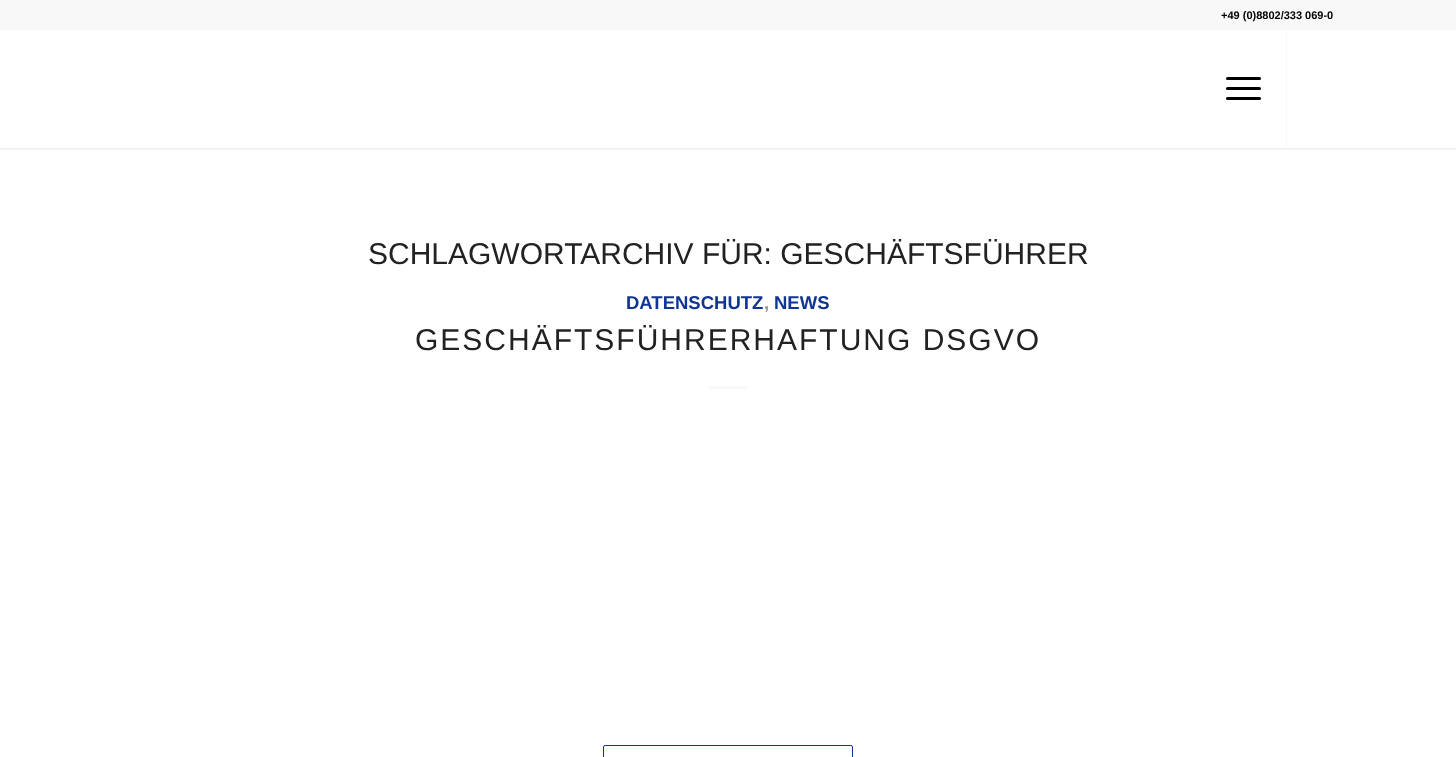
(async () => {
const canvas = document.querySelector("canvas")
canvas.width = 1456
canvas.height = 757
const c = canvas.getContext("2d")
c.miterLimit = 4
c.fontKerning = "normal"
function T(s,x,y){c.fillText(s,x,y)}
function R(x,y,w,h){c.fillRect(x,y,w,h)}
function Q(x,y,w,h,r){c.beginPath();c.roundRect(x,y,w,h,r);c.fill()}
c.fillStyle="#fff"
R(0,0,1456,757)
c.save()
c.beginPath()
c.rect(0,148,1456,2)
c.clip()
c.fillStyle="#0000001a"
c.filter="blur(1px)"
c.beginPath()
c.rect(-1,-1,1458,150)
c.fill()
c.filter="none"
c.restore()
c.fillStyle="#f8f8f8"
R(0,0,1456,30)
c.font="bold 11px Liberation Sans"
c.fillStyle="#000"
T("+49 (0)8802/333 069-0",1221,19)
c.fillStyle="#f8f8f8"
R(1286,30,1,118)
c.fillStyle="#000"
Q(1226,87,35,3,1.5)
Q(1226,77,35,3,1.5)
Q(1226,97,35,3,1.5)
c.font="30px Liberation Sans"
c.fillStyle="#222"
T("SCHLAGWORTARCHIV FÜR: GESCHÄFTSFÜHRER",368,264)
c.font="bold 18.5px Liberation Sans"
c.fillStyle="#103592"
T("DATENSCHUTZ",626,309)
c.fillStyle="#919191"
T(",",764,309)
c.fillStyle="#103592"
T("NEWS",774,309)
c.letterSpacing="2px"
c.font="30px Liberation Sans"
c.fillStyle="#222"
T("GESCHÄFTSFÜHRERHAFTUNG DSGVO",415,350)
c.fillStyle="#f8f8f8"
R(708,386,40,3)
c.beginPath()
c.roundRect(603.5,745.5,249,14,1.5)
c.strokeStyle="#103592"
c.stroke()
})()
